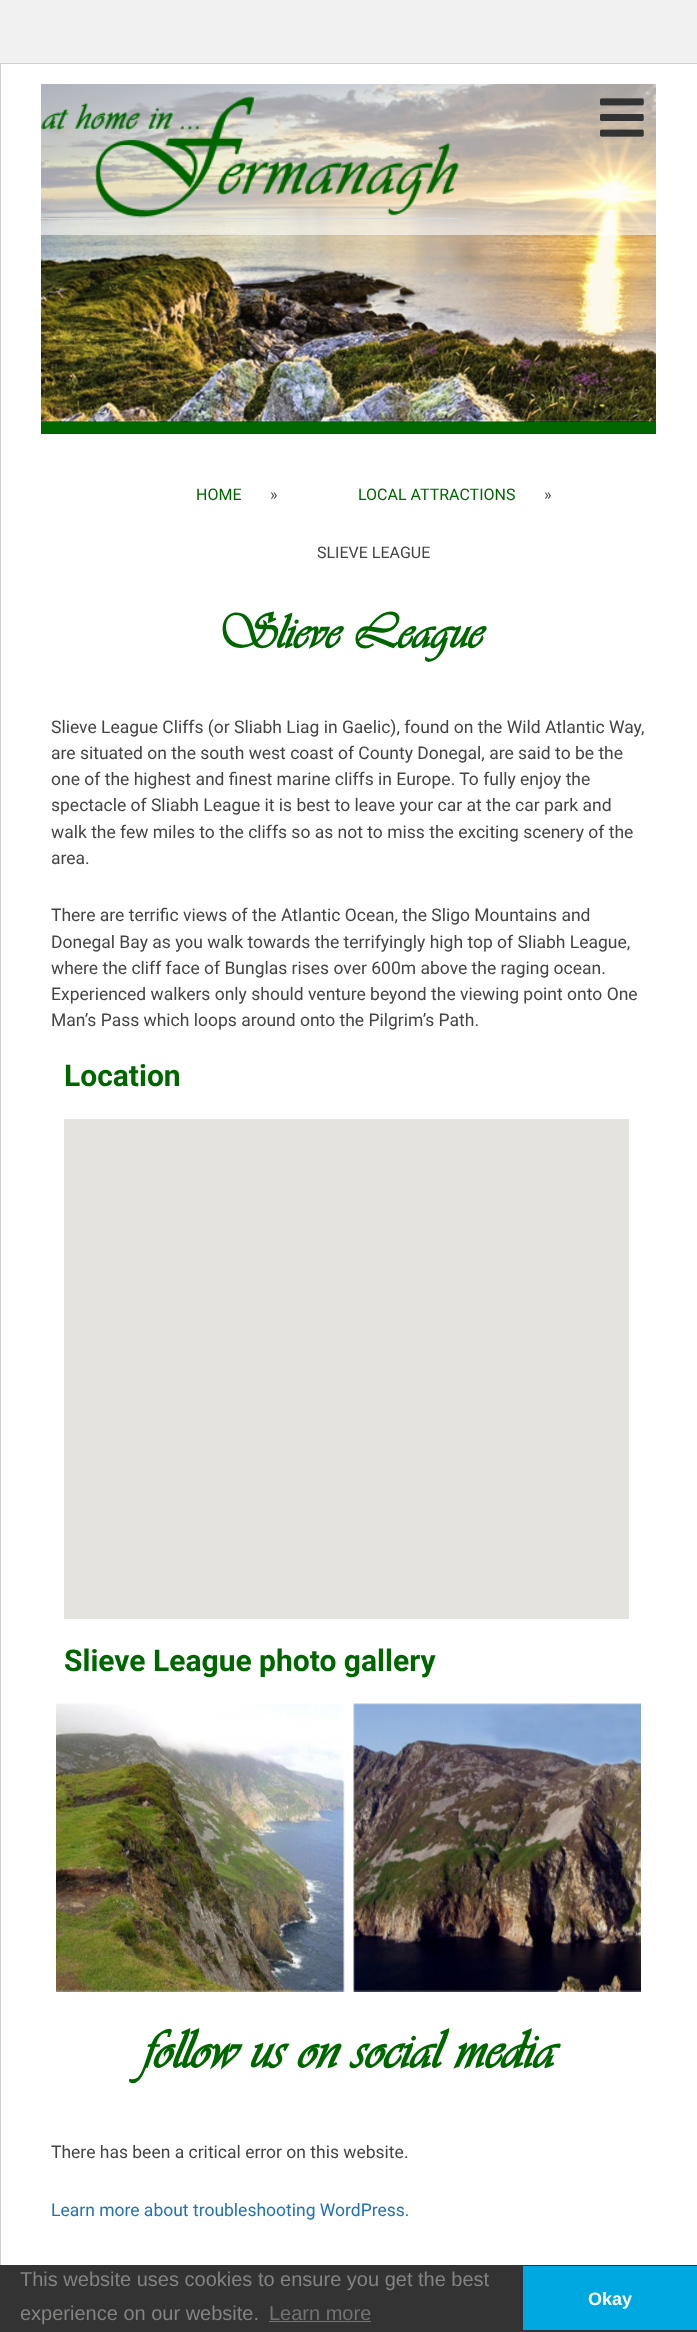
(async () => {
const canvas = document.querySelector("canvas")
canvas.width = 697
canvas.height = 2332
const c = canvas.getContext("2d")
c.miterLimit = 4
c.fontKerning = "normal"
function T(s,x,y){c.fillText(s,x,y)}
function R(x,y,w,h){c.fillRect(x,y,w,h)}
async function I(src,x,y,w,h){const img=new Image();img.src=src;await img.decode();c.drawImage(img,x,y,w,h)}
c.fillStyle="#f1f1f1"
R(0,0,697,2332)
c.fillStyle="#fff"
R(1,64,696,2201)
c.strokeStyle="#ccd0d4"
c.strokeRect(.5,63.5,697,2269)
c.fillStyle="#060"
R(41,421,615,13)
await I("1.png",41,84,615,338)
c.fillStyle="#ffffff99"
R(41,84,615,151)
c.fillStyle="#dadada"
R(41,218,418,1)
await I("2.png",41,96,418,122)
await I("3.png",600,98,44,39)
c.font="16px Roboto"
c.fillStyle="#060"
T("HOME",196,500)
c.fillStyle="#444"
T("»",270,500)
c.fillStyle="#060"
T("LOCAL ATTRACTIONS",358,500)
c.fillStyle="#444"
T("»",544,500)
T("SLIEVE LEAGUE",317,558)
c.font="bold 50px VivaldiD"
c.fillStyle="#060"
T("Slieve League",216,648)
c.font="17.5px Roboto"
c.fillStyle="#444"
T("Slieve League Cliffs (or Sliabh Liag in Gaelic), found on the Wild Atlantic Way,",51,733)
T("are situated on the south west coast of County Donegal, are said to be the",51,759)
T("one of the highest and finest marine cliffs in Europe. To fully enjoy the",51,785)
T("spectacle of Sliabh League it is best to leave your car at the car park and",51,811)
T("walk the few miles to the cliffs so as not to miss the exciting scenery of the",51,838)
T("area.",51,864)
T("There are terrific views of the Atlantic Ocean, the Sligo Mountains and",51,921)
T("Donegal Bay as you walk towards the terrifyingly high top of Sliabh League,",51,948)
T("where the cliff face of Bunglas rises over 600m above the raging ocean.",51,974)
T("Experienced walkers only should venture beyond the viewing point onto One",51,1000)
T("Man’s Pass which loops around onto the Pilgrim’s Path.",51,1026)
c.font="bold 30px Roboto"
c.fillStyle="#060"
T("Location",64,1086)
c.fillStyle="#e5e3df"
R(64,1119,565,500)
c.fillStyle="#060"
T("Slieve League photo gallery",64,1671)
await I("4.png",56,1703,289,289)
await I("5.png",353,1703,288,289)
c.font="bold 56.25px VivaldiD"
T("follow us on social media",143,2068)
c.font="17.5px Roboto"
c.fillStyle="#444"
T("There has been a critical error on this website.",51,2158)
c.fillStyle="#2271b1"
T("Learn more about troubleshooting WordPress.",51,2216)
c.fillStyle="#333"
R(0,2265,697,67)
c.font="20px Liberation Sans"
c.fillStyle="#848382"
T("This website uses cookies to ensure you get the best",20,2286)
T("experience on our website.",20,2320)
c.fillStyle="#747372"
T("Learn more",269,2320)
R(269,2321,102,1)
c.fillStyle="#00a8e1"
R(523,2266,174,64)
c.font="bold 18px Liberation Sans"
c.fillStyle="#fff"
T("Okay",588,2305)
})()
